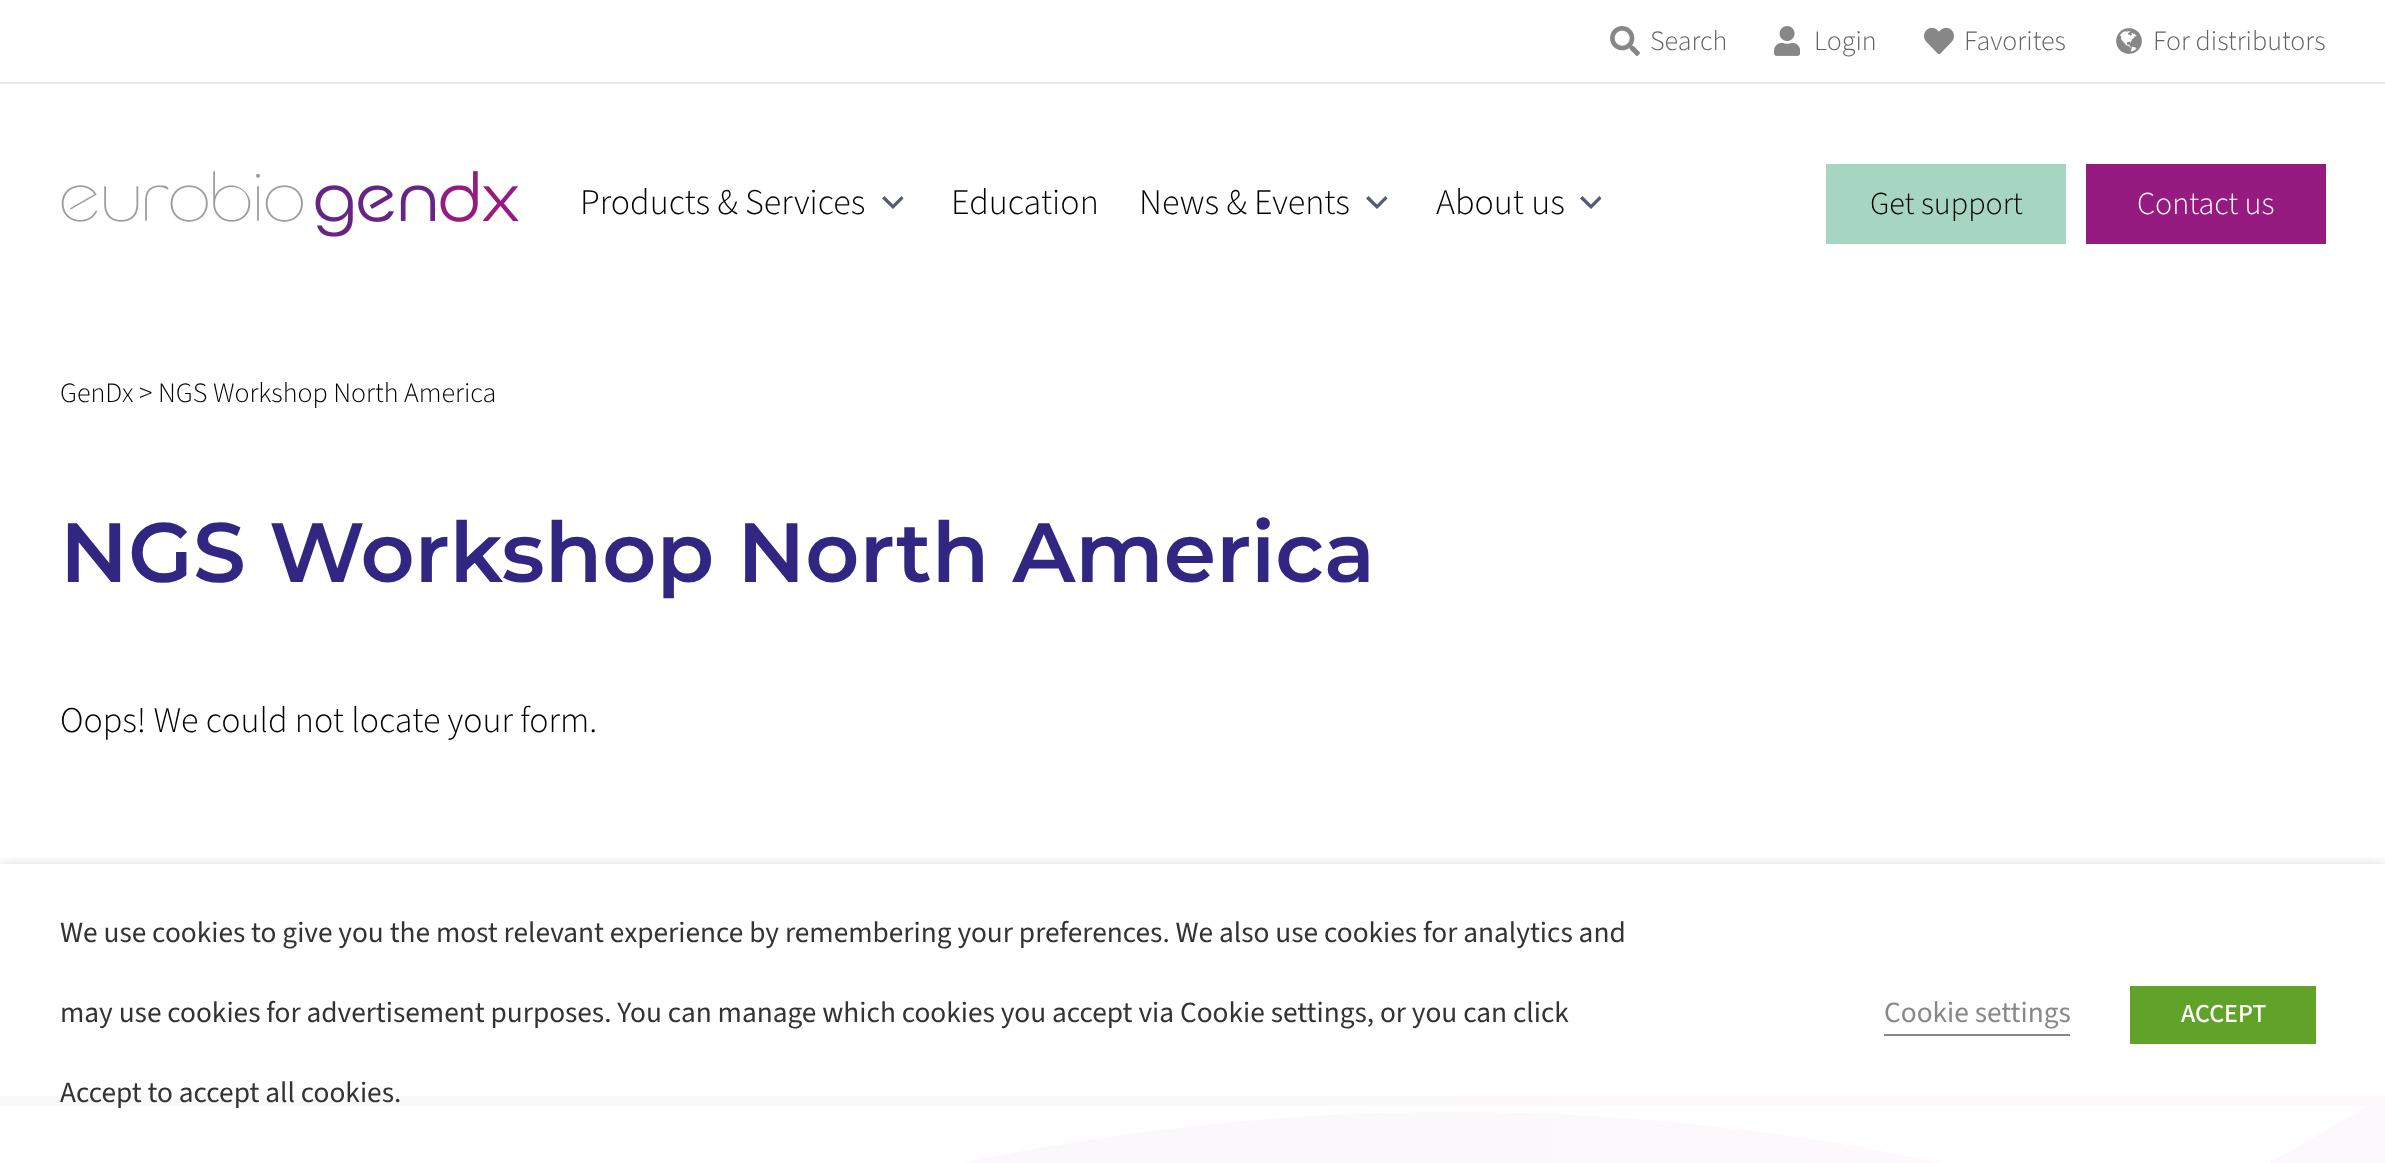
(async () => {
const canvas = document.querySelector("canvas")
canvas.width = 2385
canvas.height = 1163
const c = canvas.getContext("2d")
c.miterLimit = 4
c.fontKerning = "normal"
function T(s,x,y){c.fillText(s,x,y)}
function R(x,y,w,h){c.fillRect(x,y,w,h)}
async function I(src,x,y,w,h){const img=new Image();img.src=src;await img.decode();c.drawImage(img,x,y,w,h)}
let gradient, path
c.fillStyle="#fff"
R(0,0,2385,1163)
c.fillStyle="#e6e7e9"
R(0,82,2385,2)
await I("1.png",1610,26,30,30)
c.font="200 28px 'Source Sans 3'"
c.fillStyle="#636363"
T("Search",1650,50)
await I("2.png",1774,26,26,30)
T("Login",1814,50)
await I("3.png",1924,27,30,28)
T("Favorites",1964,50)
await I("4.png",2116,28,26,26)
T("For distributors",2153,50)
await I("5.png",61,171,458,66)
c.font="200 36px 'Source Sans 3'"
c.fillStyle="#000"
T("Products & Services",580,214)
c.fillStyle="#555b73"
path = new Path2D("M901.5 196l-8.5 8.5l-8.5-8.5l-2.5 2.5l11 10.5l10.5-10.5z")
c.fill(path)
c.fillStyle="#000"
T("Education",951,214)
T("News & Events",1139,214)
c.fillStyle="#555b73"
path = new Path2D("M1385.5 196l-8.5 8.5l-8.5-8.5l-2.5 2.5l11 10.5l10.5-10.5z")
c.fill(path)
c.fillStyle="#000"
T("About us",1436,214)
c.fillStyle="#555b73"
path = new Path2D("M1599.5 196l-8.5 8.5l-8.5-8.5l-2.5 2.5l11 10.5l10.5-10.5z")
c.fill(path)
c.fillStyle="#a6d5c2"
R(1826,164,240,80)
c.font="200 32px 'Source Sans 3'"
c.fillStyle="#000"
T("Get support",1870,214)
c.fillStyle="#951b81"
R(2086,164,240,80)
c.fillStyle="#fff"
T("Contact us",2137,214)
c.font="200 28px 'Source Sans 3'"
c.fillStyle="#000"
T("GenDx > NGS Workshop North America",60,402)
c.font="100 84px Montserrat"
c.fillStyle="#312783"
T("NGS Workshop North America",60,582)
c.font="200 36px 'Source Sans 3'"
c.fillStyle="#000"
T("Oops! We could not locate your form.",60,732)
await I("6.png",2260,1044,52,45)
gradient = c.createLinearGradient(0,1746,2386,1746)
gradient.addColorStop(.2,"#faf8fb")
gradient.addColorStop(.8,"#fcf8fb")
c.fillStyle = gradient
R(0,1096,2385,67)
c.fillStyle="#fff"
path = new Path2D("M-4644 1106v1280h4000c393-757 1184-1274 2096-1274c912 0 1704 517 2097 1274h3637v-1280z")
c.fill(path)
c.fillStyle="#fcf8fb"
path = new Path2D("M2385 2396h-2241l2241-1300z")
c.fill(path)
c.save()
c.beginPath()
c.rect(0,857,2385,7)
c.clip()
c.fillStyle="#00000080"
c.filter="blur(10px)"
c.beginPath()
c.rect(0,874,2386,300)
c.fill()
c.filter="none"
c.restore()
c.font="200 29.33px 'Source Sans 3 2'"
c.fillStyle="#333"
T("We use cookies to give you the most relevant experience by remembering your preferences. We also use cookies for analytics and",60,942)
T("may use cookies for advertisement purposes. You can manage which cookies you accept via Cookie settings, or you can click",60,1022)
T("Accept to accept all cookies.",60,1102)
c.fillStyle="#898888"
T("Cookie settings",1884,1022)
R(1884,1034,186,2)
c.fillStyle="#61a229"
R(2130,986,186,58)
c.font="200 26px 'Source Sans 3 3'"
c.fillStyle="#fff"
T("ACCEPT",2181,1022)
})()
